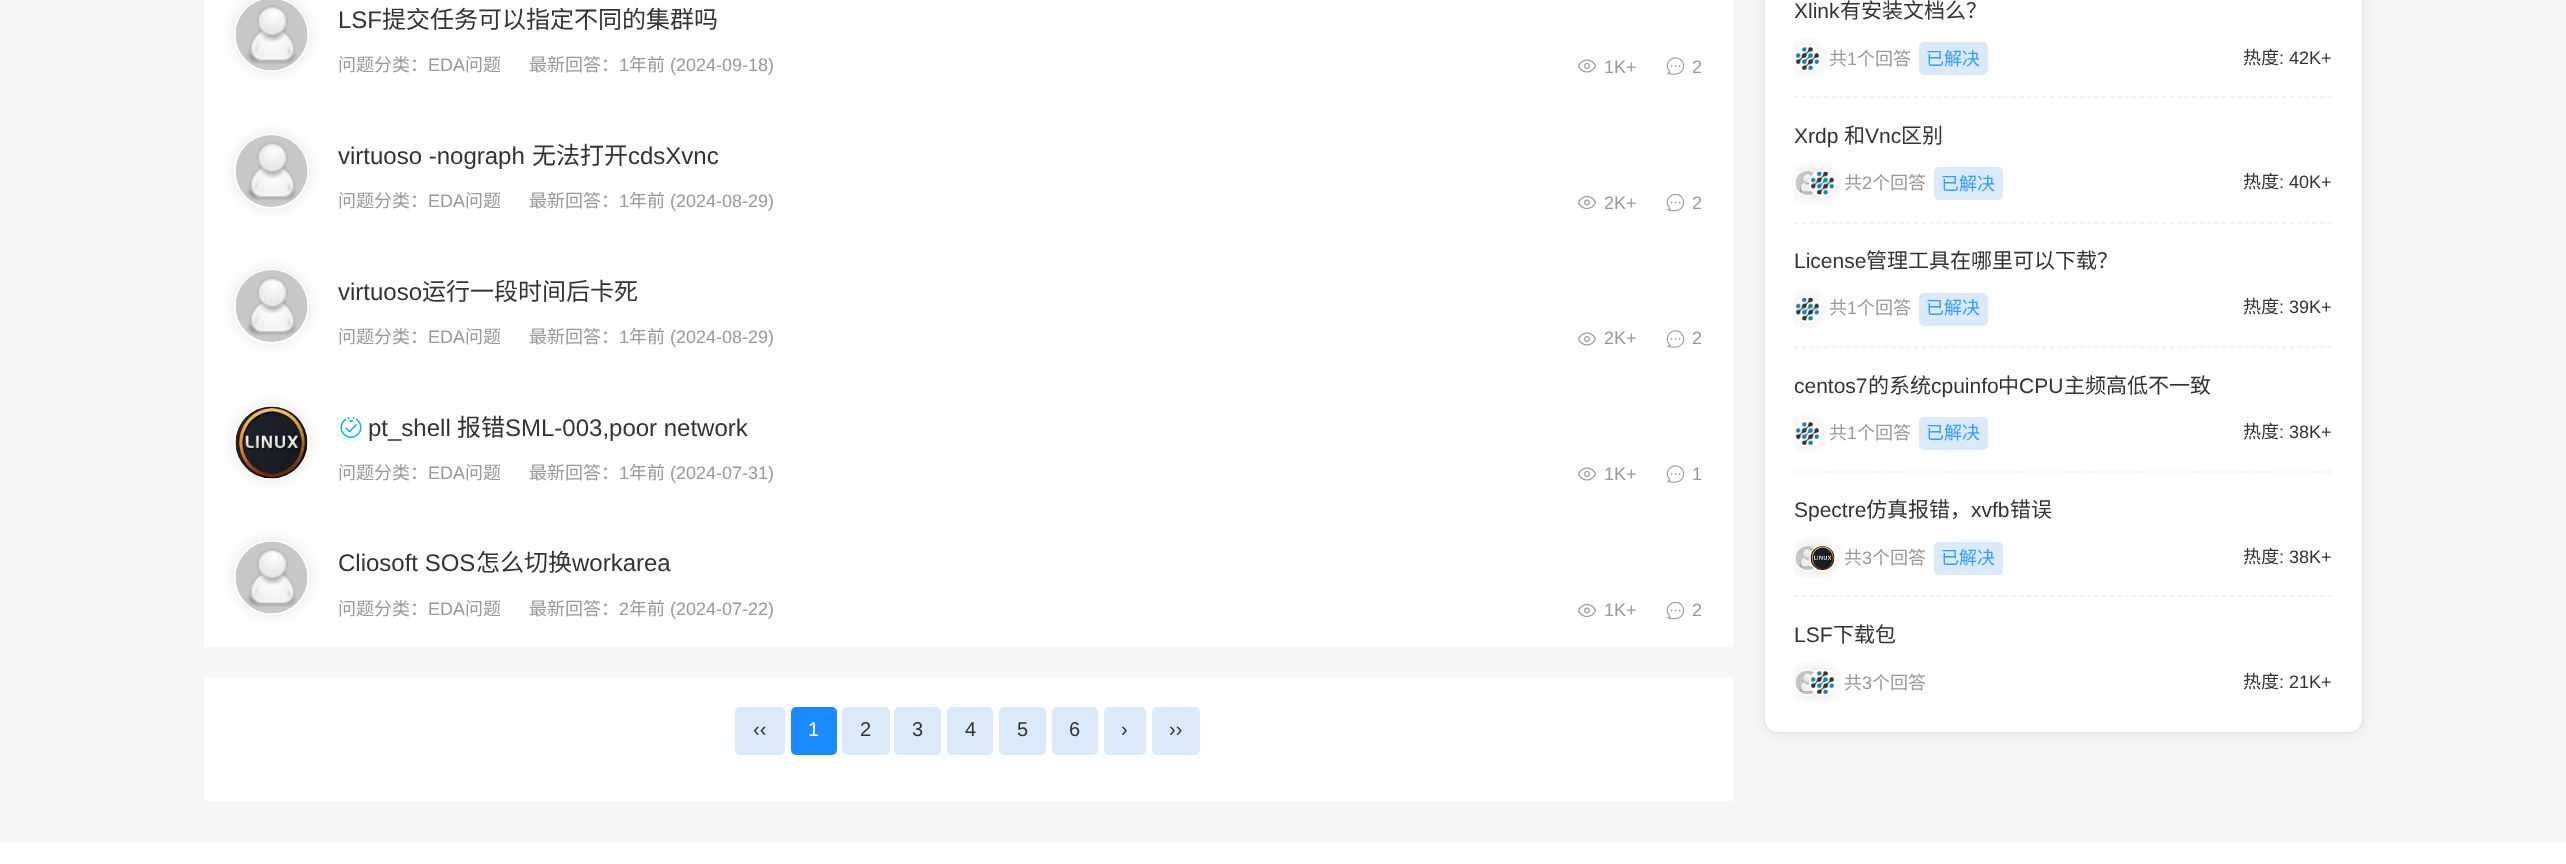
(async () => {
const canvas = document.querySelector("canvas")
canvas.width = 2566
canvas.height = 864
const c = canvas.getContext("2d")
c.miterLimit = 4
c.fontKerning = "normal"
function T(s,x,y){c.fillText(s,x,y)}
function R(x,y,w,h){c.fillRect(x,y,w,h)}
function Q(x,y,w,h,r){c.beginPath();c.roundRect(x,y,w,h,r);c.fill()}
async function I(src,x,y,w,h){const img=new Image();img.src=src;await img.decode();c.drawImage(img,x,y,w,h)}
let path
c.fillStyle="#f6f6f6"
R(0,0,2566,864)
c.fillStyle="#fff"
R(204,0,1529,647)
c.fillStyle="#0000001a"
c.filter="blur(7.5px)"
c.beginPath()
c.roundRect(234,-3,75,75,37.5)
c.fill()
c.filter="none"
c.beginPath()
c.arc(271.5,34.5,36.5,0,7)
c.strokeStyle="#fff"
c.lineWidth=2
c.stroke()
await I("1.png",235,0,73,71)
c.font="24px Liberation Sans"
c.fillStyle="#333"
T("LSF",338,28)
c.font="24px Noto Sans CJK SC"
T("提交任务可以指定不同的集群吗",382,28)
c.font="18px Noto Sans CJK SC"
c.fillStyle="#999"
T("问题分类：",338,71)
c.font="18px Liberation Sans"
T("EDA",428,71)
c.font="18px Noto Sans CJK SC"
T("问题",465,71)
T("最新回答：",529,71)
c.font="18px Liberation Sans"
T("1",619,71)
c.font="18px Noto Sans CJK SC"
T("年前",629,71)
c.font="18px Liberation Sans"
T("(2024-09-18)",670,71)
await I("2.png",1578,59,18,14)
T("1K+",1604,73)
await I("3.png",1666,57,19,18)
T("2",1692,73)
c.fillStyle="#0000001a"
c.filter="blur(7.5px)"
c.beginPath()
c.roundRect(234,134,75,75,37.5)
c.fill()
c.filter="none"
c.beginPath()
c.arc(271.5,171.5,36.5,0,7)
c.stroke()
await I("4.png",235,135,73,72)
c.font="24px Liberation Sans"
c.fillStyle="#333"
T("virtuoso -nograph",338,164)
c.font="24px Noto Sans CJK SC"
T("无法打开",532,164)
c.font="24px Liberation Sans"
T("cdsXvnc",628,164)
c.font="18px Noto Sans CJK SC"
c.fillStyle="#999"
T("问题分类：",338,207)
c.font="18px Liberation Sans"
T("EDA",428,207)
c.font="18px Noto Sans CJK SC"
T("问题",465,207)
T("最新回答：",529,207)
c.font="18px Liberation Sans"
T("1",619,207)
c.font="18px Noto Sans CJK SC"
T("年前",629,207)
c.font="18px Liberation Sans"
T("(2024-08-29)",670,207)
await I("5.png",1578,196,18,13)
T("2K+",1604,209)
await I("6.png",1666,193,19,19)
T("2",1692,209)
c.fillStyle="#0000001a"
c.filter="blur(7.5px)"
c.beginPath()
c.roundRect(234,269,75,75,37.5)
c.fill()
c.filter="none"
c.beginPath()
c.arc(271.5,306.5,36.5,0,7)
c.stroke()
await I("7.png",235,270,73,72)
c.font="24px Liberation Sans"
c.fillStyle="#333"
T("virtuoso",338,300)
c.font="24px Noto Sans CJK SC"
T("运行一段时间后卡死",422,300)
c.font="18px Noto Sans CJK SC"
c.fillStyle="#999"
T("问题分类：",338,343)
c.font="18px Liberation Sans"
T("EDA",428,343)
c.font="18px Noto Sans CJK SC"
T("问题",465,343)
T("最新回答：",529,343)
c.font="18px Liberation Sans"
T("1",619,343)
c.font="18px Noto Sans CJK SC"
T("年前",629,343)
c.font="18px Liberation Sans"
T("(2024-08-29)",670,343)
await I("2.png",1578,332,18,14)
T("2K+",1604,344)
await I("3.png",1666,330,19,18)
T("2",1692,344)
c.fillStyle="#0000001a"
c.filter="blur(7.5px)"
c.beginPath()
c.roundRect(234,405,75,75,37.5)
c.fill()
c.filter="none"
c.beginPath()
c.arc(271.5,442.5,36.5,0,7)
c.stroke()
await I("8.png",235,406,73,73)
await I("9.png",340,417,22,21)
c.font="24px Liberation Sans"
c.fillStyle="#333"
T("pt_shell",368,436)
c.font="24px Noto Sans CJK SC"
T("报错",457,436)
c.font="24px Liberation Sans"
T("SML-003,poor network",505,436)
c.font="18px Noto Sans CJK SC"
c.fillStyle="#999"
T("问题分类：",338,479)
c.font="18px Liberation Sans"
T("EDA",428,479)
c.font="18px Noto Sans CJK SC"
T("问题",465,479)
T("最新回答：",529,479)
c.font="18px Liberation Sans"
T("1",619,479)
c.font="18px Noto Sans CJK SC"
T("年前",629,479)
c.font="18px Liberation Sans"
T("(2024-07-31)",670,479)
await I("2.png",1578,467,18,14)
T("1K+",1604,480)
await I("3.png",1666,465,19,18)
T("1",1692,480)
c.fillStyle="#0000001a"
c.filter="blur(7.5px)"
c.beginPath()
c.roundRect(234,540,75,75,37.5)
c.fill()
c.filter="none"
c.beginPath()
c.arc(271.5,577.5,36.5,0,7)
c.stroke()
await I("10.png",235,541,73,73)
c.font="24px Liberation Sans"
c.fillStyle="#333"
T("Cliosoft SOS",338,571)
c.font="24px Noto Sans CJK SC"
T("怎么切换",476,571)
c.font="24px Liberation Sans"
T("workarea",572,571)
c.font="18px Noto Sans CJK SC"
c.fillStyle="#999"
T("问题分类：",338,615)
c.font="18px Liberation Sans"
T("EDA",428,615)
c.font="18px Noto Sans CJK SC"
T("问题",465,615)
T("最新回答：",529,615)
c.font="18px Liberation Sans"
T("2",619,615)
c.font="18px Noto Sans CJK SC"
T("年前",629,615)
c.font="18px Liberation Sans"
T("(2024-07-22)",670,615)
await I("5.png",1578,604,18,13)
T("1K+",1604,616)
await I("6.png",1666,601,19,19)
T("2",1692,616)
c.fillStyle="#fff"
R(204,677,1529,124)
c.fillStyle="#dbeaf9"
Q(735,707,50,48,5)
c.font="20px Liberation Sans"
c.fillStyle="#333"
T("‹‹",753,736)
c.fillStyle="#1b89ff"
Q(791,707,46,48,5)
c.fillStyle="#fff"
T("1",808,736)
c.fillStyle="#dbeaf9"
Q(842,707,48,48,5)
c.fillStyle="#333"
T("2",860,736)
c.fillStyle="#dbeaf9"
Q(894,707,47,48,5)
c.fillStyle="#333"
T("3",912,736)
c.fillStyle="#dbeaf9"
Q(947,707,46,48,5)
c.fillStyle="#333"
T("4",965,736)
c.fillStyle="#dbeaf9"
Q(999,707,47,48,5)
c.fillStyle="#333"
T("5",1017,736)
c.fillStyle="#dbeaf9"
Q(1052,707,46,48,5)
c.fillStyle="#333"
T("6",1069,736)
c.fillStyle="#dbeaf9"
Q(1104,707,42,48,5)
c.fillStyle="#333"
T("›",1121,736)
c.fillStyle="#dbeaf9"
Q(1152,707,48,48,5)
c.fillStyle="#333"
T("››",1169,736)
c.fillStyle="#0000000d"
c.filter="blur(7px)"
c.beginPath()
c.roundRect(1763,-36,601,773,15)
c.fill()
c.filter="none"
c.fillStyle="#fff"
c.beginPath()
c.roundRect(1764,-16,599,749,14)
c.fill()
c.strokeStyle="#e6e8eb"
c.stroke()
path = new Path2D("M1794 97h538.5")
c.strokeStyle="#efefef"
c.lineWidth=1.5
c.setLineDash([4.5,3.01])
c.stroke(path)
c.font="21px Liberation Sans"
c.fillStyle="#333"
T("Xlink",1794,18)
c.font="21px Noto Sans CJK SC"
T("有安装文档么？",1840,18)
c.save()
c.beginPath()
c.rect(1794,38,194,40)
c.clip()
c.fillStyle="#0000001a"
c.filter="blur(7.5px)"
c.beginPath()
c.roundRect(1794,45,27,27,13.5)
c.fill()
c.filter="none"
c.restore()
c.beginPath()
c.arc(1807.5,58.5,12.5,0,7)
c.strokeStyle="#fff"
c.lineWidth=2
c.setLineDash([])
c.stroke()
await I("11.png",1795,46,25,25)
c.font="18px Noto Sans CJK SC"
c.fillStyle="#999"
T("共",1829,65)
c.font="18px Liberation Sans"
T("1",1847,65)
c.font="18px Noto Sans CJK SC"
T("个回答",1857,65)
c.fillStyle="#dbeaf9"
Q(1919,42,69,33,5)
c.fillStyle="#339dff"
T("已解决",1926,65)
c.fillStyle="#333"
T("热度",2243,64)
c.font="18px Liberation Sans"
T(": 42K+",2279,64)
path = new Path2D("M1794 223h538.5")
c.strokeStyle="#efefef"
c.lineWidth=1.5
c.setLineDash([4.5,3.01])
c.stroke(path)
c.font="21px Liberation Sans"
T("Xrdp",1794,143)
c.font="21px Noto Sans CJK SC"
T("和",1844,143)
c.font="21px Liberation Sans"
T("Vnc",1865,143)
c.font="21px Noto Sans CJK SC"
T("区别",1901,143)
c.save()
c.beginPath()
c.rect(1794,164,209,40)
c.clip()
c.fillStyle="#0000001a"
c.filter="blur(7.5px)"
c.beginPath()
c.roundRect(1794,170,27,27,13.5)
c.fill()
c.filter="none"
c.restore()
c.beginPath()
c.arc(1807.5,183.5,12.5,0,7)
c.strokeStyle="#fff"
c.lineWidth=2
c.setLineDash([])
c.stroke()
await I("12.png",1795,171,21,24)
c.fillStyle="#0000001a"
c.filter="blur(7.5px)"
c.beginPath()
c.roundRect(1809,170,27,27,13.5)
c.fill()
c.filter="none"
c.beginPath()
c.arc(1822.5,183.5,12.5,0,7)
c.stroke()
await I("13.png",1810,171,25,24)
c.font="18px Noto Sans CJK SC"
c.fillStyle="#999"
T("共",1844,189)
c.font="18px Liberation Sans"
T("2",1862,189)
c.font="18px Noto Sans CJK SC"
T("个回答",1872,189)
c.fillStyle="#dbeaf9"
Q(1934,167,69,33,5)
c.fillStyle="#339dff"
T("已解决",1941,190)
c.fillStyle="#333"
T("热度",2243,188)
c.font="18px Liberation Sans"
T(": 40K+",2279,188)
path = new Path2D("M1794 347h538.5")
c.strokeStyle="#efefef"
c.lineWidth=1.5
c.setLineDash([4.5,3.01])
c.stroke(path)
c.font="21px Liberation Sans"
T("License",1794,268)
c.font="21px Noto Sans CJK SC"
T("管理工具在哪里可以下载？",1866,268)
c.save()
c.beginPath()
c.rect(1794,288,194,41)
c.clip()
c.fillStyle="#0000001a"
c.filter="blur(7.5px)"
c.beginPath()
c.roundRect(1794,296,27,27,13.5)
c.fill()
c.filter="none"
c.restore()
c.beginPath()
c.arc(1807.5,309.5,12.5,0,7)
c.strokeStyle="#fff"
c.lineWidth=2
c.setLineDash([])
c.stroke()
await I("14.png",1795,297,25,24)
c.font="18px Noto Sans CJK SC"
c.fillStyle="#999"
T("共",1829,314)
c.font="18px Liberation Sans"
T("1",1847,314)
c.font="18px Noto Sans CJK SC"
T("个回答",1857,314)
c.fillStyle="#dbeaf9"
Q(1919,293,69,33,5)
c.fillStyle="#339dff"
T("已解决",1926,314)
c.fillStyle="#333"
T("热度",2243,313)
c.font="18px Liberation Sans"
T(": 39K+",2279,313)
path = new Path2D("M1794 472h538.5")
c.strokeStyle="#efefef"
c.lineWidth=1.5
c.setLineDash([4.5,3.01])
c.stroke(path)
c.font="21px Liberation Sans"
T("centos7",1794,393)
c.font="21px Noto Sans CJK SC"
T("的系统",1868,393)
c.font="21px Liberation Sans"
T("cpuinfo",1931,393)
c.font="21px Noto Sans CJK SC"
T("中",1998,393)
c.font="21px Liberation Sans"
T("CPU",2019,393)
c.font="21px Noto Sans CJK SC"
T("主频高低不一致",2064,393)
c.save()
c.beginPath()
c.rect(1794,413,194,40)
c.clip()
c.fillStyle="#0000001a"
c.filter="blur(7.5px)"
c.beginPath()
c.roundRect(1794,420,27,27,13.5)
c.fill()
c.filter="none"
c.restore()
c.beginPath()
c.arc(1807.5,433.5,12.5,0,7)
c.strokeStyle="#fff"
c.lineWidth=2
c.setLineDash([])
c.stroke()
await I("11.png",1795,421,25,25)
c.font="18px Noto Sans CJK SC"
c.fillStyle="#999"
T("共",1829,439)
c.font="18px Liberation Sans"
T("1",1847,439)
c.font="18px Noto Sans CJK SC"
T("个回答",1857,439)
c.fillStyle="#dbeaf9"
Q(1919,417,69,33,5)
c.fillStyle="#339dff"
T("已解决",1926,439)
c.fillStyle="#333"
T("热度",2243,438)
c.font="18px Liberation Sans"
T(": 38K+",2279,438)
path = new Path2D("M1794 596h538.5")
c.strokeStyle="#efefef"
c.lineWidth=1.5
c.setLineDash([4.5,3.01])
c.stroke(path)
c.font="21px Liberation Sans"
T("Spectre",1794,517)
c.font="21px Noto Sans CJK SC"
T("仿真报错，",1866,517)
c.font="21px Liberation Sans"
T("xvfb",1971,517)
c.font="21px Noto Sans CJK SC"
T("错误",2010,517)
c.save()
c.beginPath()
c.rect(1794,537,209,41)
c.clip()
c.fillStyle="#0000001a"
c.filter="blur(7.5px)"
c.beginPath()
c.roundRect(1794,545,27,27,13.5)
c.fill()
c.filter="none"
c.restore()
c.beginPath()
c.arc(1807.5,558.5,12.5,0,7)
c.strokeStyle="#fff"
c.lineWidth=2
c.setLineDash([])
c.stroke()
await I("12.png",1795,546,21,24)
c.fillStyle="#0000001a"
c.filter="blur(7.5px)"
c.beginPath()
c.roundRect(1809,545,27,27,13.5)
c.fill()
c.filter="none"
c.beginPath()
c.arc(1822.5,558.5,12.5,0,7)
c.stroke()
await I("15.png",1810,546,25,24)
c.font="18px Noto Sans CJK SC"
c.fillStyle="#999"
T("共",1844,564)
c.font="18px Liberation Sans"
T("3",1862,564)
c.font="18px Noto Sans CJK SC"
T("个回答",1872,564)
c.fillStyle="#dbeaf9"
Q(1934,542,69,33,5)
c.fillStyle="#339dff"
T("已解决",1941,564)
c.fillStyle="#333"
T("热度",2243,563)
c.font="18px Liberation Sans"
T(": 38K+",2279,563)
c.font="21px Liberation Sans"
T("LSF",1794,642)
c.font="21px Noto Sans CJK SC"
T("下载包",1833,642)
c.save()
c.beginPath()
c.rect(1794,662,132,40)
c.clip()
c.fillStyle="#0000001a"
c.filter="blur(7.5px)"
c.beginPath()
c.roundRect(1794,669,27,27,13.5)
c.fill()
c.filter="none"
c.restore()
c.beginPath()
c.arc(1807.5,682.5,12.5,0,7)
c.stroke()
await I("16.png",1795,670,21,25)
c.fillStyle="#0000001a"
c.filter="blur(7.5px)"
c.beginPath()
c.roundRect(1809,669,27,27,13.5)
c.fill()
c.filter="none"
c.beginPath()
c.arc(1822.5,682.5,12.5,0,7)
c.stroke()
await I("17.png",1810,670,25,25)
c.font="18px Noto Sans CJK SC"
c.fillStyle="#999"
T("共",1844,689)
c.font="18px Liberation Sans"
T("3",1862,689)
c.font="18px Noto Sans CJK SC"
T("个回答",1872,689)
c.fillStyle="#333"
T("热度",2243,688)
c.font="18px Liberation Sans"
T(": 21K+",2279,688)
c.fillStyle="#fff"
R(0,842,2566,22)
})()
